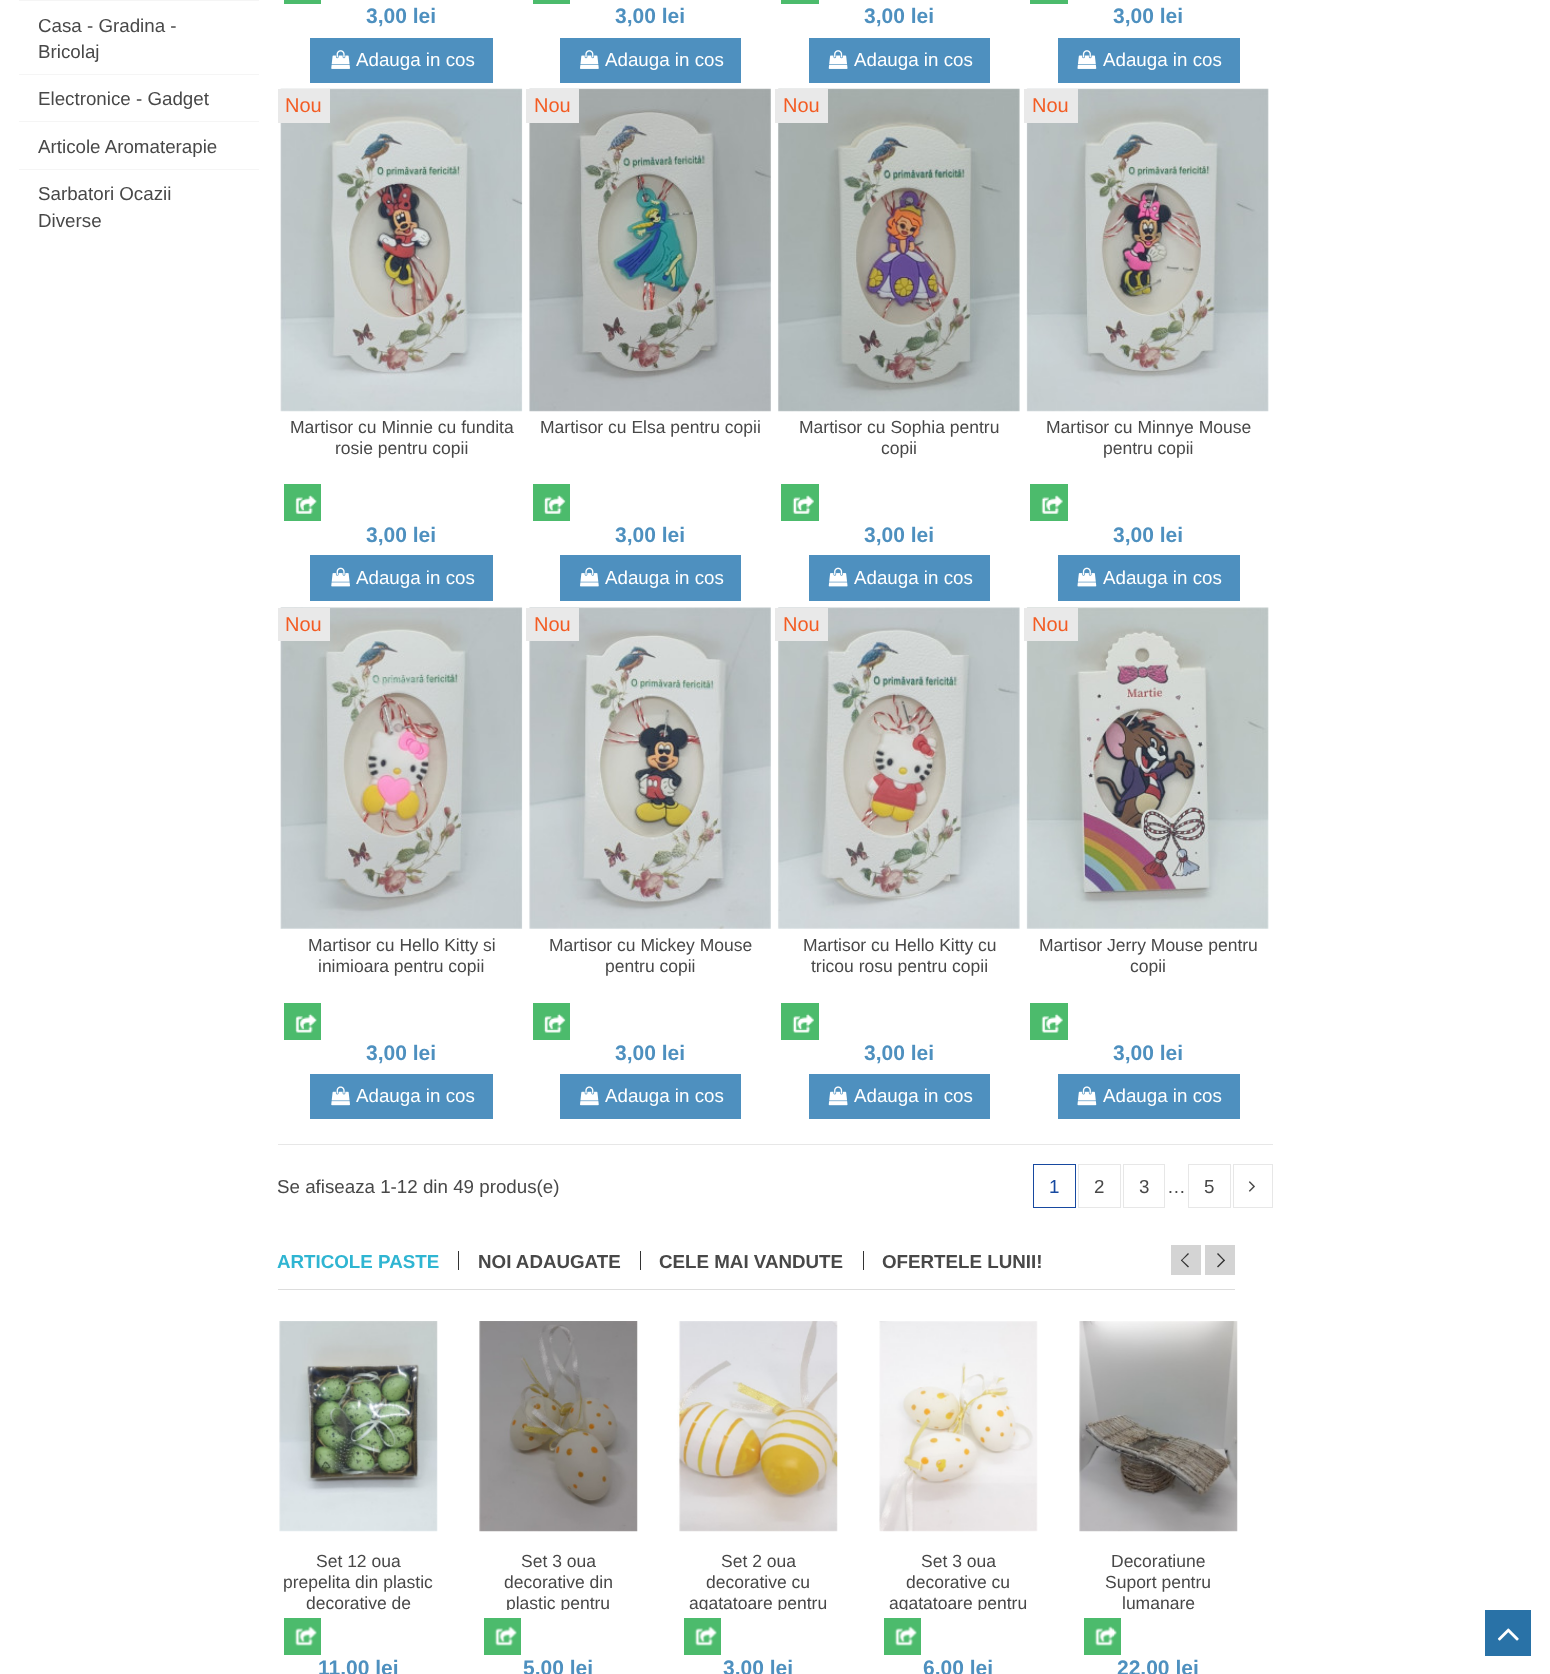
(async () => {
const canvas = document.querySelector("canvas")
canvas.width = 1550
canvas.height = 1674
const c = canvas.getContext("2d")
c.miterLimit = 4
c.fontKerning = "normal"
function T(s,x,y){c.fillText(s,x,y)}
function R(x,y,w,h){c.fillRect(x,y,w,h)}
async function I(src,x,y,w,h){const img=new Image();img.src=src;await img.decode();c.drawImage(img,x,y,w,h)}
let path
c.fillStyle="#fff"
R(0,0,1550,1674)
c.fillStyle="#f5f5f5"
R(19,0,240,1)
c.font="18.75px Liberation Sans"
c.fillStyle="#484848"
T("Casa - Gradina -",38,32)
T("Bricolaj",38,58)
c.fillStyle="#f5f5f5"
R(19,74,240,1)
c.fillStyle="#484848"
T("Electronice - Gadget",38,105)
c.fillStyle="#f5f5f5"
R(19,121,240,1)
c.fillStyle="#484848"
T("Articole Aromaterapie",38,153)
c.fillStyle="#f5f5f5"
R(19,169,240,1)
c.fillStyle="#484848"
T("Sarbatori Ocazii",38,200)
T("Diverse",38,227)
c.fillStyle="#4cbb6c"
R(284,0,37,4)
c.font="bold 21px Liberation Sans"
c.fillStyle="#4e90bf"
T("3,00 lei",366,23)
R(310,38,183,45)
await I("1.png",331,50,19,19)
c.font="18.75px Liberation Sans"
c.fillStyle="#fff"
T("Adauga in cos",356,66)
c.fillStyle="#4cbb6c"
R(533,0,37,4)
c.font="bold 21px Liberation Sans"
c.fillStyle="#4e90bf"
T("3,00 lei",615,23)
R(560,38,181,45)
await I("2.png",580,50,19,19)
c.font="18.75px Liberation Sans"
c.fillStyle="#fff"
T("Adauga in cos",605,66)
c.fillStyle="#4cbb6c"
R(781,0,38,4)
c.font="bold 21px Liberation Sans"
c.fillStyle="#4e90bf"
T("3,00 lei",864,23)
R(809,38,181,45)
await I("3.png",828,50,20,19)
c.font="18.75px Liberation Sans"
c.fillStyle="#fff"
T("Adauga in cos",854,66)
c.fillStyle="#4cbb6c"
R(1030,0,38,4)
c.font="bold 21px Liberation Sans"
c.fillStyle="#4e90bf"
T("3,00 lei",1113,23)
R(1058,38,182,45)
await I("4.png",1077,50,20,19)
c.font="18.75px Liberation Sans"
c.fillStyle="#fff"
T("Adauga in cos",1103,66)
await I("5.png",280,88,243,324)
c.fillStyle="#e9e9e9"
R(278,89,52,34)
c.font="20px Liberation Sans"
c.fillStyle="#f35c23"
T("Nou",285,112)
c.font="17.5px Liberation Sans"
c.fillStyle="#484848"
T("Martisor cu Minnie cu fundita",290,433)
T("rosie pentru copii",335,454)
c.fillStyle="#4cbb6c"
R(284,484,37,37)
await I("6.png",295,495,22,19)
c.font="bold 21px Liberation Sans"
c.fillStyle="#4e90bf"
T("3,00 lei",366,542)
R(310,555,183,46)
await I("7.png",331,567,19,20)
c.font="18.75px Liberation Sans"
c.fillStyle="#fff"
T("Adauga in cos",356,584)
await I("8.png",529,88,242,324)
c.fillStyle="#e9e9e9"
R(526,89,53,34)
c.font="20px Liberation Sans"
c.fillStyle="#f35c23"
T("Nou",534,112)
c.font="17.5px Liberation Sans"
c.fillStyle="#484848"
T("Martisor cu Elsa pentru copii",540,433)
c.fillStyle="#4cbb6c"
R(533,484,37,37)
await I("9.png",543,495,23,19)
c.font="bold 21px Liberation Sans"
c.fillStyle="#4e90bf"
T("3,00 lei",615,542)
R(560,555,181,46)
await I("10.png",580,567,19,20)
c.font="18.75px Liberation Sans"
c.fillStyle="#fff"
T("Adauga in cos",605,584)
await I("11.png",777,88,243,324)
c.fillStyle="#e9e9e9"
R(775,89,53,34)
c.font="20px Liberation Sans"
c.fillStyle="#f35c23"
T("Nou",783,112)
c.font="17.5px Liberation Sans"
c.fillStyle="#484848"
T("Martisor cu Sophia pentru",799,433)
T("copii",881,454)
c.fillStyle="#4cbb6c"
R(781,484,38,37)
await I("12.png",792,495,22,19)
c.font="bold 21px Liberation Sans"
c.fillStyle="#4e90bf"
T("3,00 lei",864,542)
R(809,555,181,46)
await I("13.png",828,567,20,20)
c.font="18.75px Liberation Sans"
c.fillStyle="#fff"
T("Adauga in cos",854,584)
await I("14.png",1026,88,243,324)
c.fillStyle="#e9e9e9"
R(1024,89,54,34)
c.font="20px Liberation Sans"
c.fillStyle="#f35c23"
T("Nou",1032,112)
c.font="17.5px Liberation Sans"
c.fillStyle="#484848"
T("Martisor cu Minnye Mouse",1046,433)
T("pentru copii",1103,454)
c.fillStyle="#4cbb6c"
R(1030,484,38,37)
await I("15.png",1041,495,22,19)
c.font="bold 21px Liberation Sans"
c.fillStyle="#4e90bf"
T("3,00 lei",1113,542)
R(1058,555,182,46)
await I("16.png",1077,567,20,20)
c.font="18.75px Liberation Sans"
c.fillStyle="#fff"
T("Adauga in cos",1103,584)
await I("17.png",280,607,243,322)
c.fillStyle="#e9e9e9"
R(278,608,52,33)
c.font="20px Liberation Sans"
c.fillStyle="#f35c23"
T("Nou",285,631)
c.font="17.5px Liberation Sans"
c.fillStyle="#484848"
T("Martisor cu Hello Kitty si",308,951)
T("inimioara pentru copii",318,972)
c.fillStyle="#4cbb6c"
R(284,1003,37,37)
await I("18.png",295,1013,22,20)
c.font="bold 21px Liberation Sans"
c.fillStyle="#4e90bf"
T("3,00 lei",366,1060)
R(310,1074,183,45)
await I("19.png",331,1086,19,20)
c.font="18.75px Liberation Sans"
c.fillStyle="#fff"
T("Adauga in cos",356,1102)
await I("20.png",529,607,242,322)
c.fillStyle="#e9e9e9"
R(526,608,53,33)
c.font="20px Liberation Sans"
c.fillStyle="#f35c23"
T("Nou",534,631)
c.font="17.5px Liberation Sans"
c.fillStyle="#484848"
T("Martisor cu Mickey Mouse",549,951)
T("pentru copii",605,972)
c.fillStyle="#4cbb6c"
R(533,1003,37,37)
await I("21.png",543,1013,23,20)
c.font="bold 21px Liberation Sans"
c.fillStyle="#4e90bf"
T("3,00 lei",615,1060)
R(560,1074,181,45)
await I("22.png",580,1086,19,20)
c.font="18.75px Liberation Sans"
c.fillStyle="#fff"
T("Adauga in cos",605,1102)
await I("23.png",777,607,243,322)
c.fillStyle="#e9e9e9"
R(775,608,53,33)
c.font="20px Liberation Sans"
c.fillStyle="#f35c23"
T("Nou",783,631)
c.font="17.5px Liberation Sans"
c.fillStyle="#484848"
T("Martisor cu Hello Kitty cu",803,951)
T("tricou rosu pentru copii",811,972)
c.fillStyle="#4cbb6c"
R(781,1003,38,37)
await I("24.png",792,1013,22,20)
c.font="bold 21px Liberation Sans"
c.fillStyle="#4e90bf"
T("3,00 lei",864,1060)
R(809,1074,181,45)
await I("25.png",828,1086,20,20)
c.font="18.75px Liberation Sans"
c.fillStyle="#fff"
T("Adauga in cos",854,1102)
await I("26.png",1026,607,243,322)
c.fillStyle="#e9e9e9"
R(1024,608,54,33)
c.font="20px Liberation Sans"
c.fillStyle="#f35c23"
T("Nou",1032,631)
c.font="17.5px Liberation Sans"
c.fillStyle="#484848"
T("Martisor Jerry Mouse pentru",1039,951)
T("copii",1130,972)
c.fillStyle="#4cbb6c"
R(1030,1003,38,37)
await I("27.png",1041,1013,22,20)
c.font="bold 21px Liberation Sans"
c.fillStyle="#4e90bf"
T("3,00 lei",1113,1060)
R(1058,1074,182,45)
await I("28.png",1077,1086,20,20)
c.font="18.75px Liberation Sans"
c.fillStyle="#fff"
T("Adauga in cos",1103,1102)
c.fillStyle="#e7e7e7"
R(278,1144,995,1)
c.fillStyle="#484848"
T("Se afiseaza 1-12 din 49 produs(e)",277,1193)
c.strokeStyle="#1749a0"
c.strokeRect(1033.5,1164.5,42,43)
c.fillStyle="#1749a0"
T("1",1049,1193)
c.strokeStyle="#e7e7e7"
c.strokeRect(1078.5,1164.5,42,43)
c.fillStyle="#484848"
T("2",1094,1193)
c.strokeRect(1123.5,1164.5,41,43)
T("3",1139,1193)
T("…",1167,1193)
c.strokeRect(1188.5,1164.5,42,43)
T("5",1204,1193)
c.strokeRect(1233.5,1164.5,39,43)
await I("29.png",1248,1181,7,11)
c.fillStyle="#ddd"
R(278,1289,957,1)
c.font="bold 18.75px Liberation Sans"
c.fillStyle="#2fb5d2"
T("ARTICOLE PASTE",277,1268)
c.fillStyle="#333"
R(458,1251,1,19)
c.fillStyle="#484848"
T("NOI ADAUGATE",478,1268)
c.fillStyle="#333"
R(640,1251,1,19)
c.fillStyle="#484848"
T("CELE MAI VANDUTE",659,1268)
c.fillStyle="#333"
R(863,1251,1,19)
c.fillStyle="#484848"
T("OFERTELE LUNII!",882,1268)
c.fillStyle="#d4d4d4"
R(1171,1245,30,30)
c.fillStyle="#333"
path = new Path2D("M1188 1267.5l-7-7l.5-1l7.5 7z")
c.fill(path)
path = new Path2D("M1181.5 1261l-.5-.5l7-7.5l1 1z")
c.fill(path)
c.fillStyle="#d4d4d4"
R(1205,1245,30,30)
c.fillStyle="#333"
path = new Path2D("M1218 1253l7 7.5l-1 .5l-7-7z")
c.fill(path)
path = new Path2D("M1224 1259.5l1 1l-7 7l-1-1z")
c.fill(path)
await I("30.png",279,1321,159,211)
c.font="17.5px Liberation Sans"
c.fillStyle="#484848"
T("Set 12 oua",316,1567)
T("prepelita din plastic",283,1588)
T("decorative de",306,1609)
c.fillStyle="#4cbb6c"
R(284,1618,37,37)
await I("31.png",294,1626,23,20)
c.font="bold 21px Liberation Sans"
c.fillStyle="#4e90bf"
T("11,00 lei",318,1675)
await I("32.png",479,1321,159,211)
c.font="17.5px Liberation Sans"
c.fillStyle="#484848"
T("Set 3 oua",521,1567)
T("decorative din",504,1588)
c.save()
c.beginPath()
c.rect(484,1550,150,60)
c.clip()
T("plastic pentru",506,1609)
c.restore()
c.fillStyle="#4cbb6c"
R(484,1618,37,37)
await I("31.png",494,1626,23,20)
c.font="bold 21px Liberation Sans"
c.fillStyle="#4e90bf"
T("5,00 lei",523,1675)
await I("33.png",677,1321,161,211)
c.font="17.5px Liberation Sans"
c.fillStyle="#484848"
T("Set 2 oua",721,1567)
T("decorative cu",706,1588)
c.save()
c.beginPath()
c.rect(684,1550,150,60)
c.clip()
T("agatatoare pentru",689,1609)
c.restore()
c.fillStyle="#4cbb6c"
R(684,1618,37,37)
await I("31.png",694,1626,23,20)
c.font="bold 21px Liberation Sans"
c.fillStyle="#4e90bf"
T("3,00 lei",723,1675)
await I("34.png",879,1321,159,211)
c.font="17.5px Liberation Sans"
c.fillStyle="#484848"
T("Set 3 oua",921,1567)
T("decorative cu",906,1588)
c.save()
c.beginPath()
c.rect(884,1550,150,60)
c.clip()
T("agatatoare pentru",889,1609)
c.restore()
c.fillStyle="#4cbb6c"
R(884,1618,37,37)
await I("31.png",894,1626,23,20)
c.font="bold 21px Liberation Sans"
c.fillStyle="#4e90bf"
T("6,00 lei",923,1675)
await I("35.png",1079,1321,159,211)
c.font="17.5px Liberation Sans"
c.fillStyle="#484848"
T("Decoratiune",1111,1567)
T("Suport pentru",1105,1588)
T("lumanare",1122,1609)
c.fillStyle="#4cbb6c"
R(1084,1618,37,37)
await I("36.png",1094,1626,23,20)
c.font="bold 21px Liberation Sans"
c.fillStyle="#4e90bf"
T("22,00 lei",1117,1675)
c.fillStyle="#2972a7"
R(1485,1610,46,46)
await I("37.png",1497,1628,22,13)
})()
